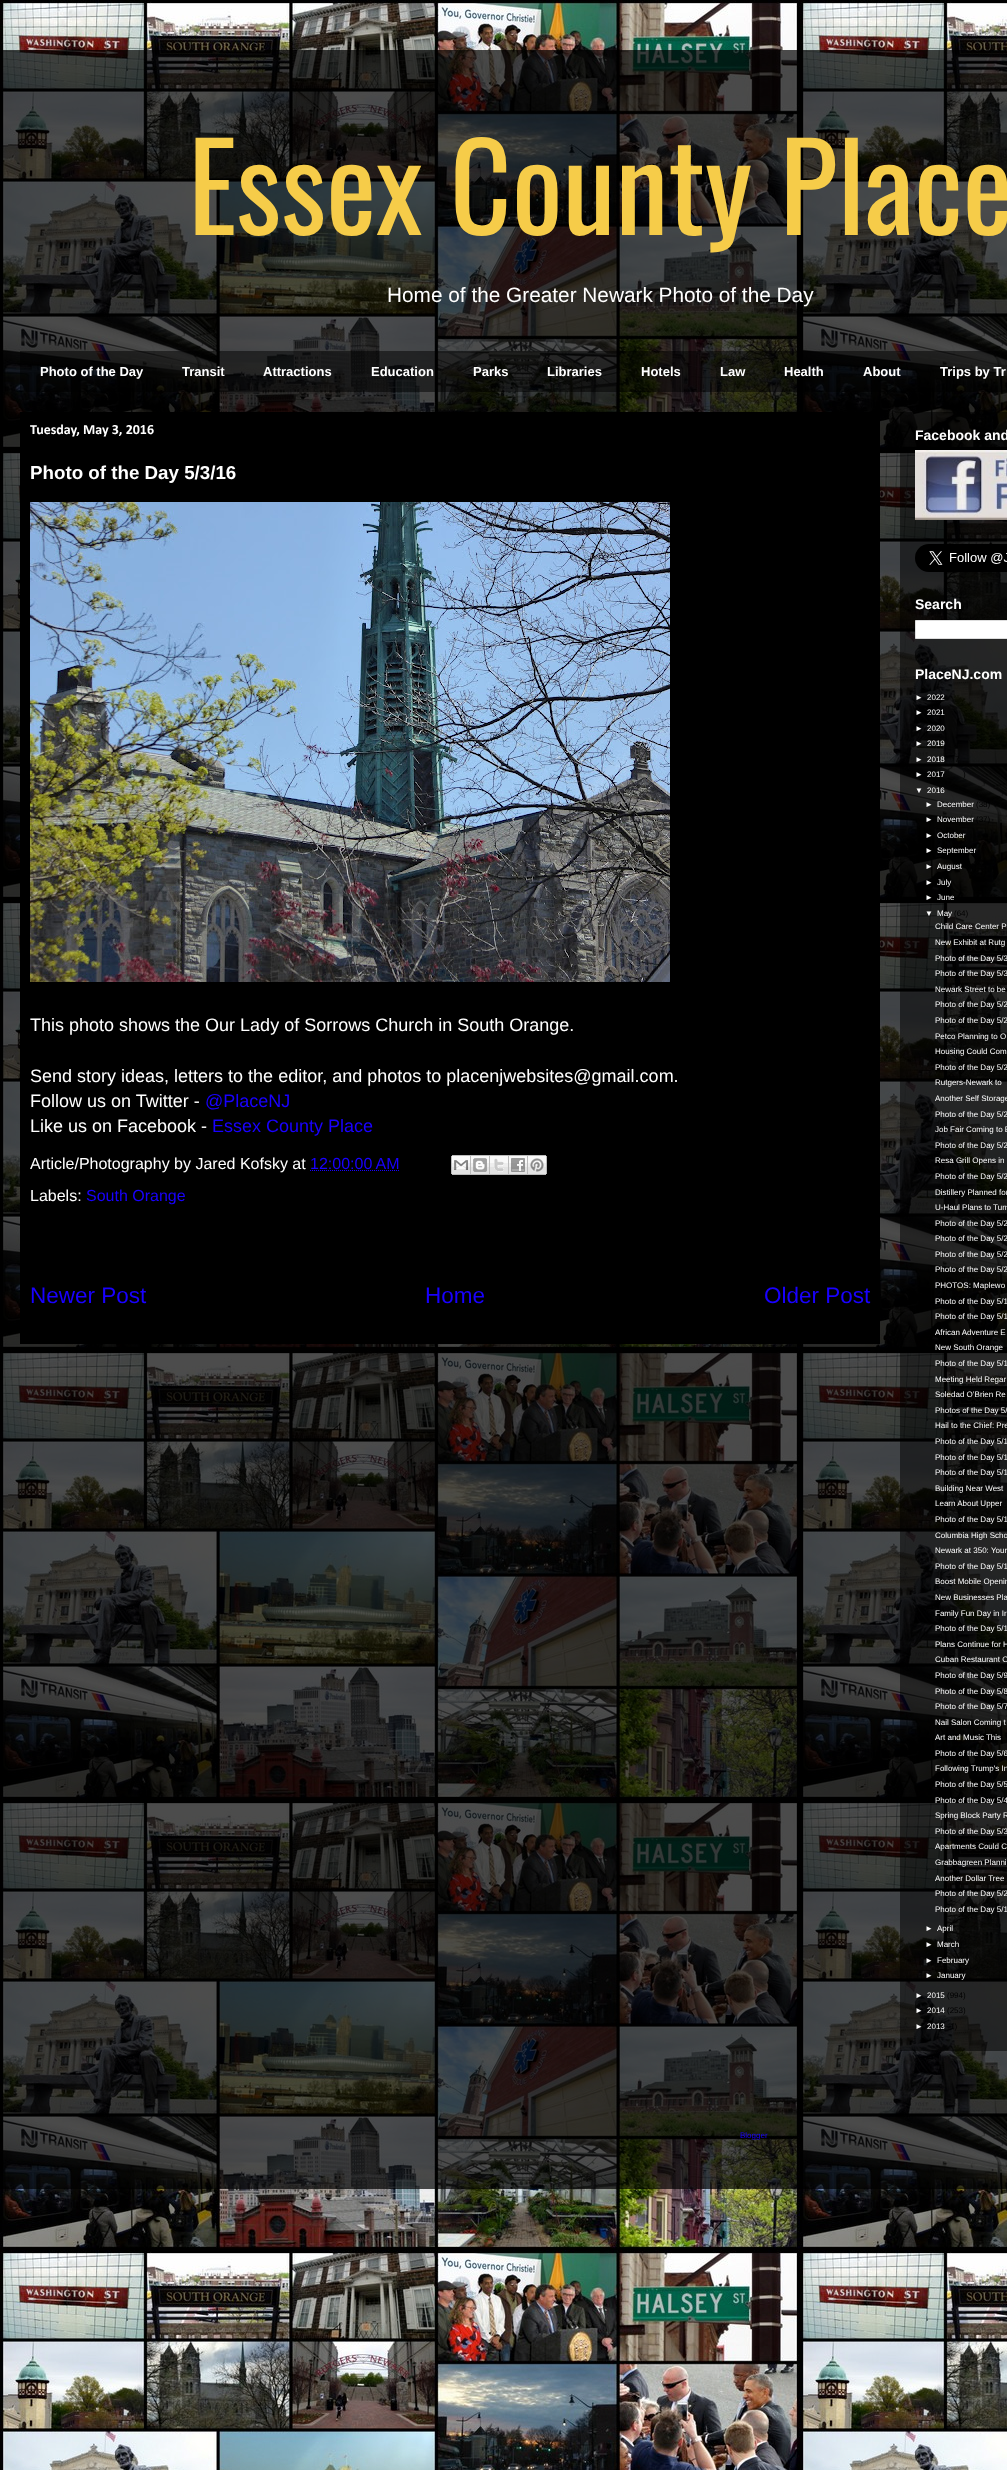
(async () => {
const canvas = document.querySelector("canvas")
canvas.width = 1007
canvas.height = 2470
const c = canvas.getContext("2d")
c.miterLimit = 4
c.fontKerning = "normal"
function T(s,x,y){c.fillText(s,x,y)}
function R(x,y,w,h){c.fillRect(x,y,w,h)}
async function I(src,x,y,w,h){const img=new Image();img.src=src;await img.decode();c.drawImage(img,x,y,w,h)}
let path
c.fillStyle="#fff"
R(0,0,1007,2470)
await I("1.png",0,0,1007,2470)
c.fillStyle="#000000b3"
R(0,50,1007,2139)
c.font="120px Oswald"
c.fillStyle="#f6cc49"
T("Essex County Place",188,235)
c.font="20.8px Liberation Sans"
c.fillStyle="#fff"
T("Home of the Greater Newark Photo of the Day",387,302)
c.fillStyle="#00000080"
R(20,351,987,41)
c.font="bold 13px Liberation Sans"
c.fillStyle="#fff"
T("Photo of the Day",40,376)
T("Transit",182,376)
T("Attractions",263,376)
T("Education",371,376)
T("Parks",473,376)
T("Libraries",547,376)
T("Hotels",641,376)
T("Law",720,376)
T("Health",784,376)
T("About",863,376)
T("Trips by Tr",940,376)
c.fillStyle="#00000080"
R(900,412,107,1639)
c.fillStyle="#000"
R(20,412,860,932)
c.font="bold 14px Calibri"
c.fillStyle="#fff"
T("Tuesday, May 3, 2016",30,434)
c.font="bold 18.75px Liberation Sans"
T("Photo of the Day 5/3/16",30,479)
await I("2.png",30,502,640,480)
c.font="18px Liberation Sans"
T("This photo shows the Our Lady of Sorrows Church in South Orange.",30,1031)
T("Send story ideas, letters to the editor, and photos to placenjwebsites@gmail.com.",30,1082)
T("Follow us on Twitter -",30,1107)
c.fillStyle="#1900ff"
T("@PlaceNJ",205,1107)
c.fillStyle="#fff"
T("Like us on Facebook -",30,1132)
c.fillStyle="#1900ff"
T("Essex County Place",212,1132)
c.font="16px Liberation Sans"
c.fillStyle="#fff"
T("Article/Photography by Jared Kofsky at",30,1169)
c.fillStyle="#1900ff"
T("12:00:00 AM",310,1169)
path = new Path2D("M310 1170.5h89.5")
c.strokeStyle="#1900ff"
c.setLineDash([1,1])
c.stroke(path)
await I("3.png",451,1155,20,20)
await I("4.png",471,1155,19,20)
await I("5.png",490,1155,19,20)
await I("6.png",509,1155,19,20)
await I("7.png",528,1155,19,20)
c.fillStyle="#fff"
T("Labels:",30,1201)
c.fillStyle="#1900ff"
T("South Orange",86,1201)
c.font="22.5px Liberation Sans"
T("Newer Post",30,1303)
T("Home",425,1303)
T("Older Post",764,1303)
c.font="bold 14px Liberation Sans"
c.fillStyle="#fff"
T("Facebook and",915,440)
await I("8.png",915,450,92,70)
await I("9.png",915,544,92,28)
T("Search",915,609)
c.beginPath()
c.rect(915.5,620.5,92,18)
c.fill()
c.strokeStyle="#ddd"
c.setLineDash([])
c.stroke()
T("PlaceNJ.com",915,679)
c.font="8px Liberation Sans"
T("►",915,700)
T("2022",927,700)
T("►",915,715)
T("2021",927,715)
T("►",915,731)
T("2020",927,731)
T("►",915,746)
T("2019",927,746)
T("►",915,762)
T("2018",927,762)
c.fillStyle="#000"
T("7",955,762)
c.fillStyle="#fff"
T("►",915,777)
T("2017",927,777)
c.fillStyle="#000"
T(")",963,777)
c.fillStyle="#fff"
T("▼",915,793)
T("2016",927,793)
T("►",925,807)
T("December",937,807)
c.fillStyle="#000"
T("(38)",976,807)
c.fillStyle="#fff"
T("►",925,822)
T("November",937,822)
c.fillStyle="#000"
T("(37)",976,822)
c.fillStyle="#fff"
T("►",925,838)
T("October",937,838)
T("►",925,853)
T("September",937,853)
T("►",925,869)
T("August",937,869)
T("►",925,885)
T("July",937,885)
T("►",925,900)
T("June",937,900)
T("▼",925,916)
T("May",937,916)
c.fillStyle="#000"
T("(64)",954,916)
c.fillStyle="#fff"
T("Child Care Center P",935,929)
T("New Exhibit at Rutg",935,945)
T("Photo of the Day 5/3",935,961)
T("Photo of the Day 5/3",935,976)
T("Newark Street to be",935,992)
T("Photo of the Day 5/2",935,1007)
T("Photo of the Day 5/2",935,1023)
T("Petco Planning to O",935,1039)
T("Housing Could Com",935,1054)
T("Photo of the Day 5/2",935,1070)
T("Rutgers-Newark to",935,1085)
T("Another Self Storage",935,1101)
T("Photo of the Day 5/2",935,1117)
T("Job Fair Coming to E",935,1132)
T("Photo of the Day 5/2",935,1148)
T("Resa Grill Opens in",935,1163)
T("Photo of the Day 5/2",935,1179)
T("Distillery Planned for",935,1195)
T("U-Haul Plans to Turn",935,1210)
T("Photo of the Day 5/2",935,1226)
T("Photo of the Day 5/2",935,1241)
T("Photo of the Day 5/2",935,1257)
T("Photo of the Day 5/2",935,1272)
T("PHOTOS: Maplewo",935,1288)
T("Photo of the Day 5/1",935,1304)
T("Photo of the Day 5/1",935,1319)
T("African Adventure E",935,1335)
T("New South Orange",935,1350)
T("Photo of the Day 5/1",935,1366)
T("Meeting Held Regar",935,1382)
T("Soledad O’Brien Re",935,1397)
T("Photos of the Day 5/",935,1413)
T("Hail to the Chief: Pre",935,1428)
T("Photo of the Day 5/1",935,1444)
T("Photo of the Day 5/1",935,1460)
T("Photo of the Day 5/1",935,1475)
T("Building Near West",935,1491)
T("Learn About Upper",935,1506)
T("Photo of the Day 5/1",935,1522)
T("Columbia High Scho",935,1538)
T("Newark at 350: Your",935,1553)
T("Photo of the Day 5/1",935,1569)
T("Boost Mobile Openin",935,1584)
T("New Businesses Pla",935,1600)
T("Family Fun Day in Ir",935,1616)
T("Photo of the Day 5/1",935,1631)
T("Plans Continue for H",935,1647)
T("Cuban Restaurant O",935,1662)
T("Photo of the Day 5/9",935,1678)
T("Photo of the Day 5/8",935,1694)
T("Photo of the Day 5/7",935,1709)
T("Nail Salon Coming t",935,1725)
T("Art and Music This",935,1740)
T("Photo of the Day 5/6",935,1756)
T("Following Trump's In",935,1771)
T("Photo of the Day 5/5",935,1787)
T("Photo of the Day 5/4",935,1803)
T("Spring Block Party R",935,1818)
T("Photo of the Day 5/3",935,1834)
T("Apartments Could C",935,1849)
T("Grabbagreen Planni",935,1865)
T("Another Dollar Tree",935,1881)
T("Photo of the Day 5/2",935,1896)
T("Photo of the Day 5/1",935,1912)
T("►",925,1931)
T("April",937,1931)
T("►",925,1947)
T("March",937,1947)
T("►",925,1963)
T("February",937,1963)
T("►",925,1978)
T("January",937,1978)
T("►",915,1998)
T("2015",927,1998)
c.fillStyle="#000"
T("(994)",947,1998)
c.fillStyle="#fff"
T("►",915,2013)
T("2014",927,2013)
c.fillStyle="#000"
T("(253)",947,2013)
c.fillStyle="#fff"
T("►",915,2029)
T("2013",927,2029)
c.fillStyle="#000"
T("1)",950,2029)
c.fillStyle="#1900ff"
T("Blogger",740,2138)
})()
